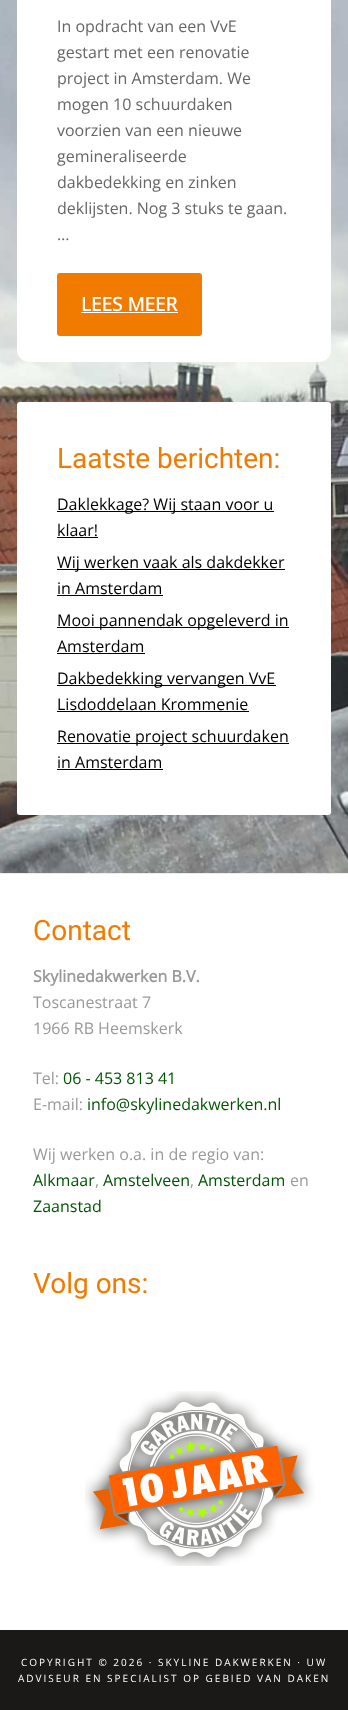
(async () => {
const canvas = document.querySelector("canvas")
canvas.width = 348
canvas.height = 1710
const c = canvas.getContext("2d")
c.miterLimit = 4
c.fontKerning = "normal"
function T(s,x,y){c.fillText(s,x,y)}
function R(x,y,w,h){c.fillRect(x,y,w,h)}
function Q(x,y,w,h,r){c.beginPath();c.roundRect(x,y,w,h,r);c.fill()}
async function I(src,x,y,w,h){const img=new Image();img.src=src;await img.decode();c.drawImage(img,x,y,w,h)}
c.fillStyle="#fff"
R(0,0,348,1710)
await I("1.png",0,0,348,873)
Q(17,-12,314,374,12)
c.font="16px Open Sans"
c.fillStyle="#666"
T("In opdracht van een VvE",57,32)
T("gestart met een renovatie",57,58)
T("project in Amsterdam. We",57,84)
T("mogen 10 schuurdaken",57,110)
T("voorzien van een nieuwe",57,136)
T("gemineraliseerde",57,162)
T("dakbedekking en zinken",57,188)
T("deklijsten. Nog 3 stuks te gaan.",57,214)
T("…",57,240)
c.fillStyle="#f17b00"
Q(57,273,145,63,3)
c.font="bold 19px Open Sans"
c.fillStyle="#fff"
T("LEES MEER",81,311)
R(81,312,97,1)
Q(17,402,314,413,3)
c.font="28px Roboto"
c.fillStyle="#f17b00"
T("Laatste berichten:",57,468)
c.fillStyle="#000"
R(57,511,217,1)
c.font="16px Open Sans"
T("Daklekkage? Wij staan voor u",57,510)
T("klaar!",57,536)
R(57,537,41,1)
R(57,569,228,1)
T("Wij werken vaak als dakdekker",57,568)
T("in Amsterdam",57,594)
R(57,595,106,1)
R(57,627,232,1)
T("Mooi pannendak opgeleverd in",57,626)
T("Amsterdam",57,652)
R(57,653,88,1)
R(57,685,219,1)
T("Dakbedekking vervangen VvE",57,684)
T("Lisdoddelaan Krommenie",57,710)
R(57,711,192,1)
R(57,743,232,1)
T("Renovatie project schuurdaken",57,742)
T("in Amsterdam",57,768)
R(57,769,106,1)
c.fillStyle="#ececec"
R(0,873,348,1)
c.font="28px Roboto"
c.fillStyle="#f17b00"
T("Contact",33,940)
c.font="bold 16px Open Sans"
c.fillStyle="#999"
T("Skylinedakwerken B.V.",33,982)
c.font="16px Open Sans"
T("Toscanestraat 7",33,1008)
T("1966 RB Heemskerk",33,1034)
T("Tel:",33,1084)
c.fillStyle="#005502"
T("06 - 453 813 41",63,1084)
c.fillStyle="#999"
T("E-mail:",33,1110)
c.fillStyle="#005502"
T("info@skylinedakwerken.nl",87,1110)
c.fillStyle="#999"
T("Wij werken o.a. in de regio van:",33,1160)
c.fillStyle="#005502"
T("Alkmaar",33,1186)
c.fillStyle="#999"
T(",",95,1186)
c.fillStyle="#005502"
T("Amstelveen",103,1186)
c.fillStyle="#999"
T(",",190,1186)
c.fillStyle="#005502"
T("Amsterdam",198,1186)
c.fillStyle="#999"
T("en",290,1186)
c.fillStyle="#005502"
T("Zaanstad",33,1212)
c.font="28px Roboto"
c.fillStyle="#f17b00"
T("Volg ons:",33,1293)
await I("2.png",85,1391,230,175)
c.fillStyle="#1a1917"
R(0,1630,348,80)
c.letterSpacing="2px"
c.font="10px Open Sans"
c.fillStyle="#fff"
T("COPYRIGHT © 2026 · SKYLINE DAKWERKEN · UW",21,1666)
T("ADVISEUR EN SPECIALIST OP GEBIED VAN DAKEN",18,1682)
})()
